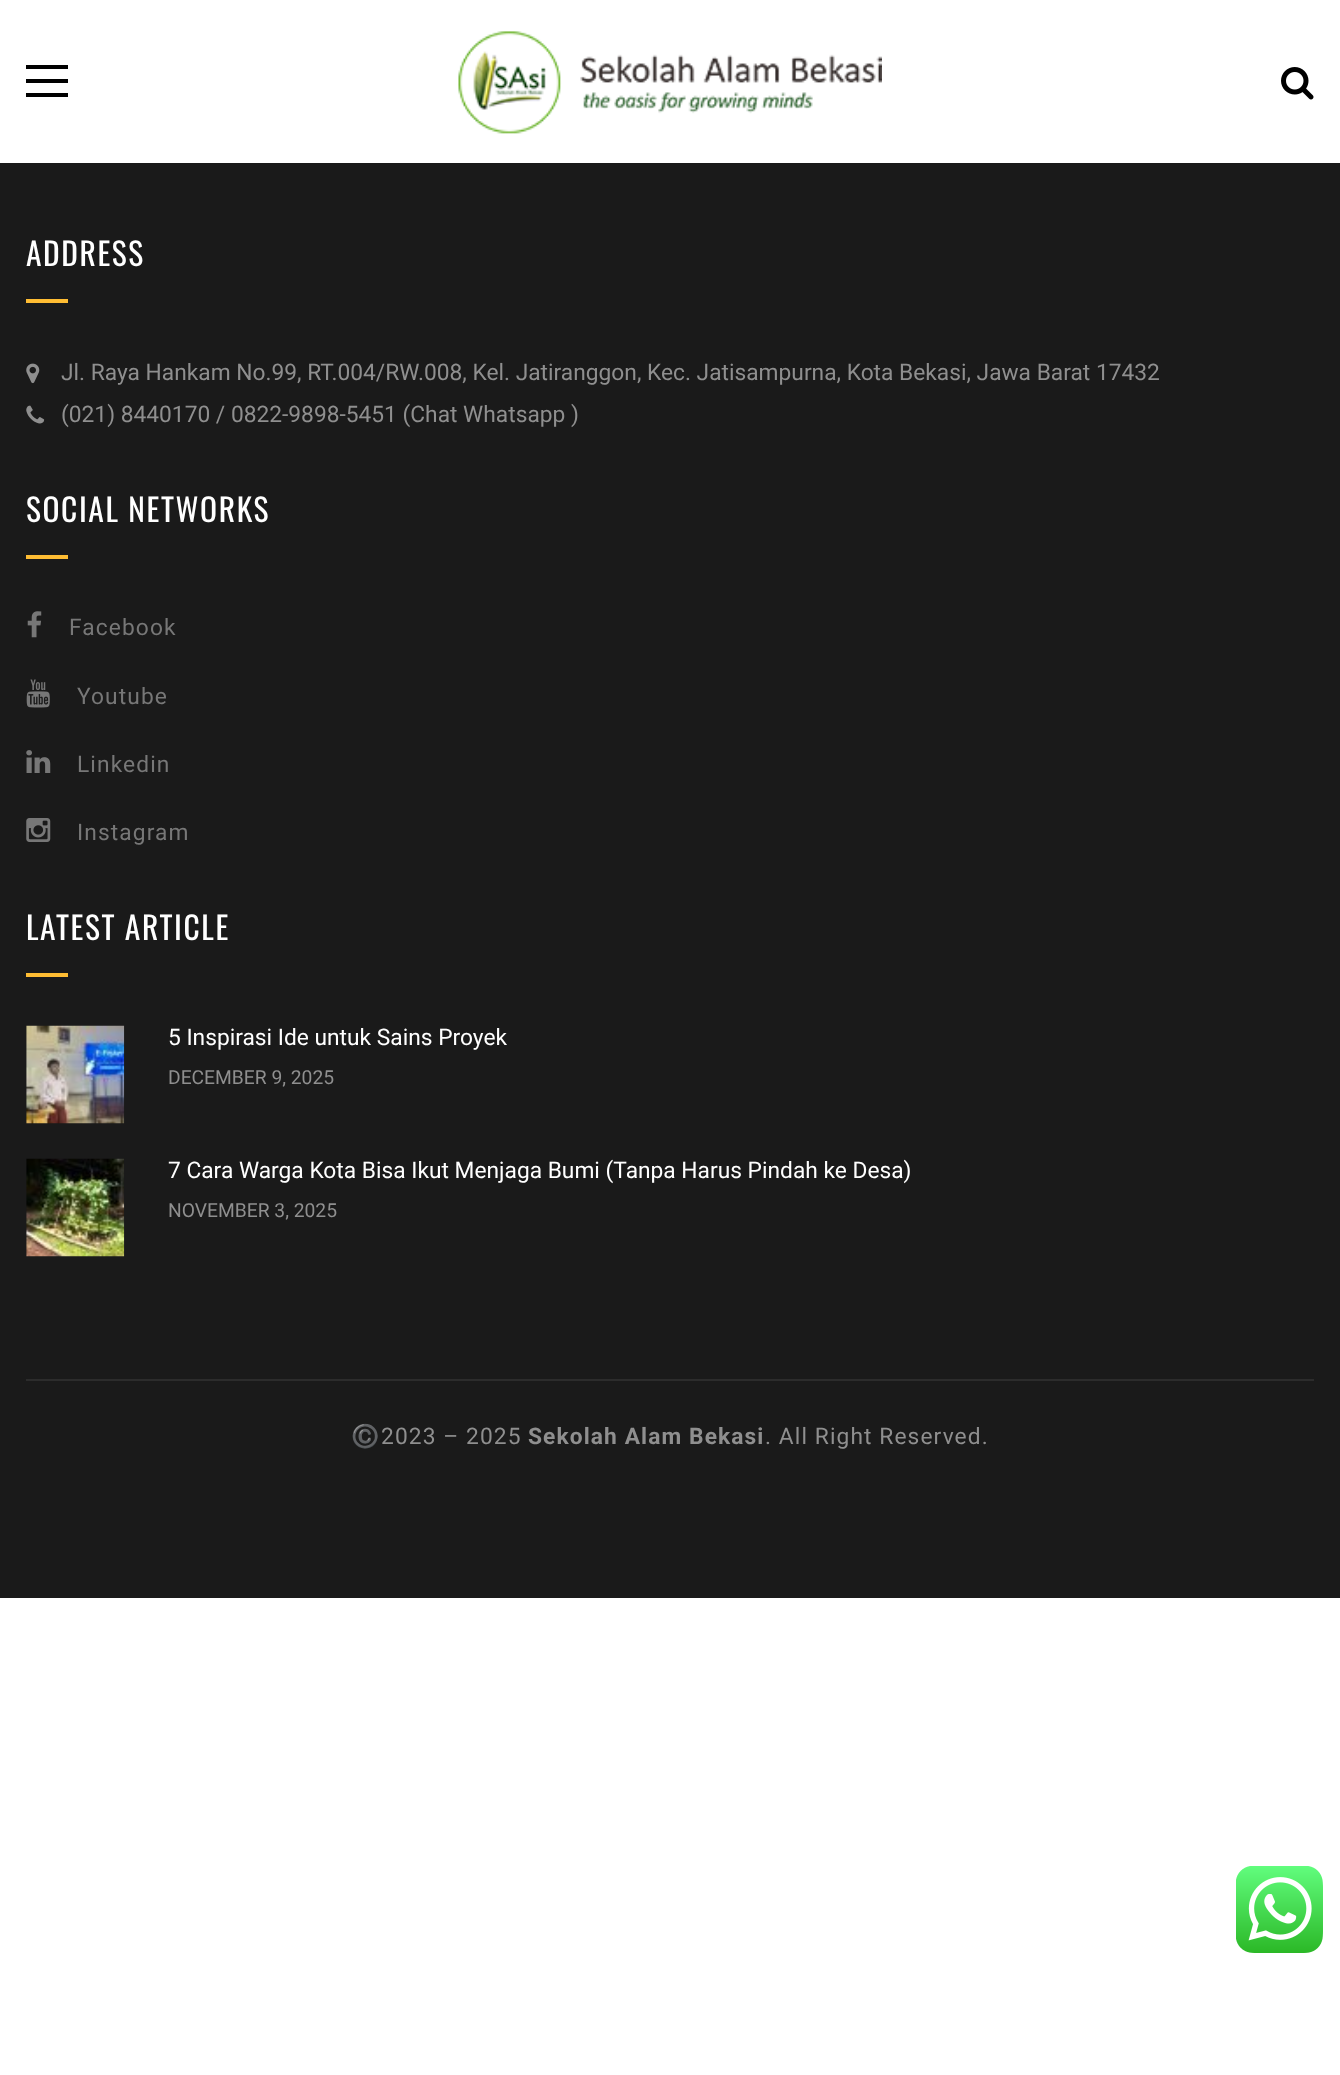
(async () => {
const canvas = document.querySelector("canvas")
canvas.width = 1340
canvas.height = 2075
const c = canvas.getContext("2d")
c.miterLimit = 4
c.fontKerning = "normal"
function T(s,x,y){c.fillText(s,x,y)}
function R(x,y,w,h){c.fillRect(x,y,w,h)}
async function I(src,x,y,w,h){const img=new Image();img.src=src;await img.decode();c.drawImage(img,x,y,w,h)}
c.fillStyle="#fff"
R(0,0,1340,2075)
c.fillStyle="#000"
R(26,65,42,4)
R(26,79,42,4)
R(26,93,42,4)
await I("1.png",458,31,424,103)
await I("2.png",1281,67,33,33)
c.fillStyle="#1a1a1a"
R(0,163,1340,1435)
c.letterSpacing="1.6px"
c.font="31.5px Oswald"
c.fillStyle="#fff"
T("ADDRESS",26,266)
c.fillStyle="#ffbd33"
R(26,299,42,4)
await I("3.png",26,363,14,21)
c.letterSpacing="0px"
c.font="22.75px Roboto"
c.fillStyle="#8f8f8f"
T("Jl. Raya Hankam No.99, RT.004/RW.008, Kel. Jatiranggon, Kec. Jatisampurna, Kota Bekasi, Jawa Barat 17432",61,380)
await I("4.png",26,405,19,19)
T("(021) 8440170 / 0822-9898-5451 (Chat Whatsapp )",61,422)
c.letterSpacing="1.6px"
c.font="31.5px Oswald"
c.fillStyle="#fff"
T("SOCIAL NETWORKS",26,522)
c.fillStyle="#ffbd33"
R(26,555,42,4)
await I("5.png",27,611,15,27)
c.letterSpacing="1.1px"
c.font="22.75px Roboto"
c.fillStyle="#777"
T("Facebook",69,635)
await I("6.png",26,679,24,29)
T("Youtube",77,704)
await I("7.png",26,750,25,23)
T("Linkedin",77,772)
await I("8.png",26,818,25,24)
T("Instagram",77,840)
c.letterSpacing="1.6px"
c.font="31.5px Oswald"
c.fillStyle="#fff"
T("LATEST ARTICLE",26,940)
c.fillStyle="#ffbd33"
R(26,973,42,4)
await I("9.png",26,1025,99,99)
c.letterSpacing="0px"
c.font="22.75px Roboto"
c.fillStyle="#fff"
T("5 Inspirasi Ide untuk Sains Proyek",168,1045)
c.font="19.25px Roboto"
c.fillStyle="#8f8f8f"
T("DECEMBER 9, 2025",168,1084)
await I("10.png",26,1158,99,99)
c.font="22.75px Roboto"
c.fillStyle="#fff"
T("7 Cara Warga Kota Bisa Ikut Menjaga Bumi (Tanpa Harus Pindah ke Desa)",168,1178)
c.font="19.25px Roboto"
c.fillStyle="#8f8f8f"
T("NOVEMBER 3, 2025",168,1217)
c.fillStyle="#2c2c2c"
R(26,1379,1288,2)
c.letterSpacing="1.1px"
c.font="22.75px Noto Color Emoji"
c.fillStyle="#8f8f8f"
T("©️",351,1444)
c.font="22.75px Roboto"
T("2023 – 2025",381,1444)
c.font="bold 22.75px Roboto"
T("Sekolah Alam Bekasi",528,1444)
c.font="22.75px Roboto"
T(". All Right Reserved.",765,1444)
await I("11.png",1236,1866,87,87)
})()
